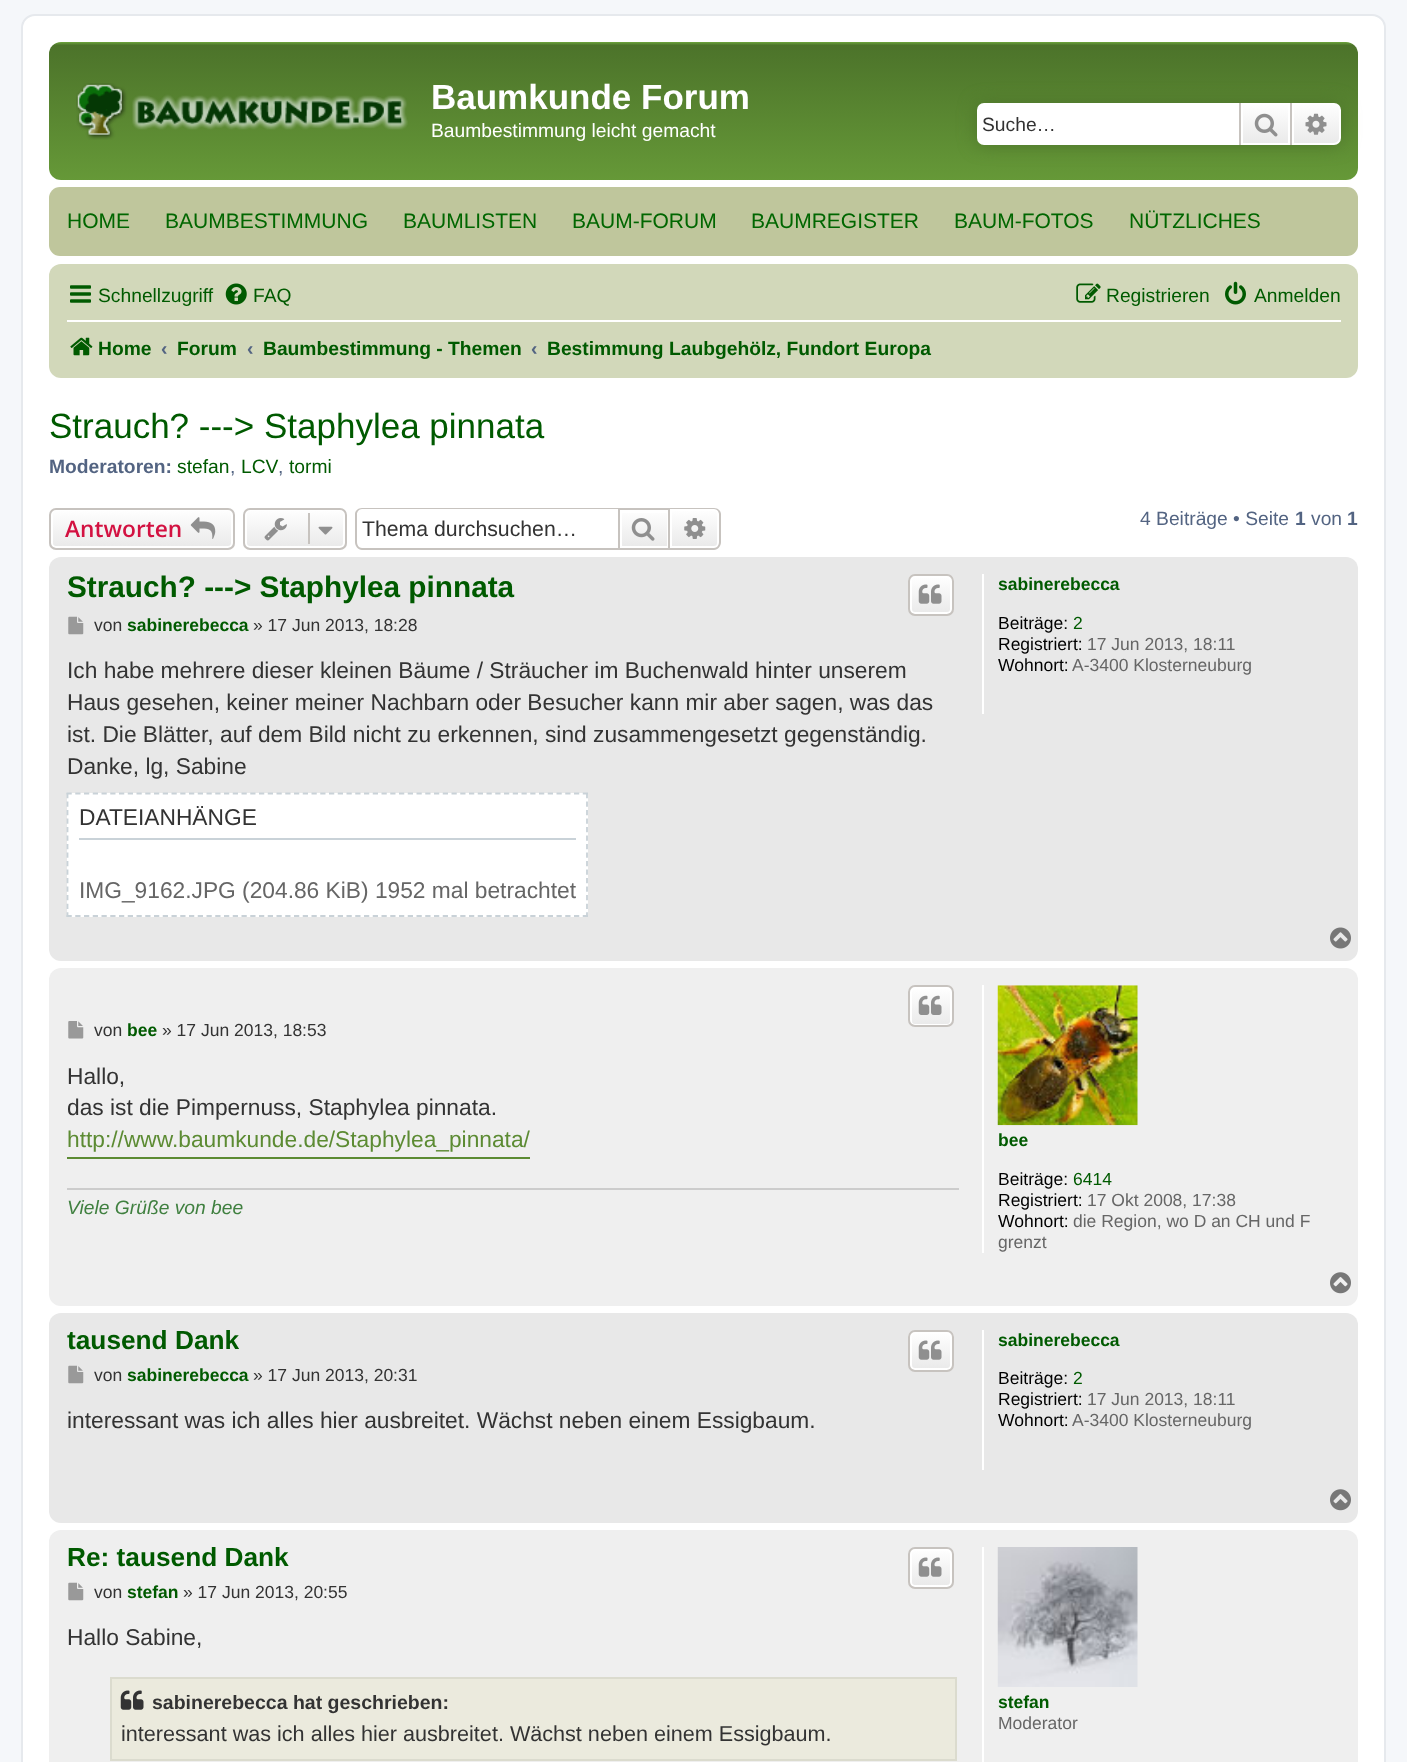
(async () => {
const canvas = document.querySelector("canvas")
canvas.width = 1407
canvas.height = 1762
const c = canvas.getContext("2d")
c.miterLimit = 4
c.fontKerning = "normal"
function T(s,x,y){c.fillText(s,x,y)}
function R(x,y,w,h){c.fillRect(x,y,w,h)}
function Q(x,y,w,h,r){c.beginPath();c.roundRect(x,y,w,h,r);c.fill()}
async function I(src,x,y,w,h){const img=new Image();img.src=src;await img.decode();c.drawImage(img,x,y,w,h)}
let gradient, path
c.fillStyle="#f5f7fa"
R(0,0,1407,1762)
c.fillStyle="#fff"
c.beginPath()
c.roundRect(22,15,1363,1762,13)
c.fill()
c.strokeStyle="#e6e9ed"
c.lineWidth=2
c.stroke()
gradient = c.createLinearGradient(704,42,704,203)
gradient.addColorStop(0,"#6ea63d")
gradient.addColorStop(.02,"#4c732a")
gradient.addColorStop(1,"#6a9f3a")
c.fillStyle = gradient
Q(49,42,1309,138,12)
await I("1.png",76,83,332,57)
c.font="bold 35px Liberation Sans"
c.fillStyle="#fff"
T("Baumkunde Forum",431,109)
c.font="19.25px Liberation Sans"
T("Baumbestimmung leicht gemacht",431,137)
c.fillStyle="#4e762b"
c.filter="blur(9px)"
c.beginPath()
c.roundRect(977,103,364,42,7)
c.fill()
c.filter="none"
c.fillStyle="#fff"
c.beginPath()
c.roundRect(977,103,262,42,[7,0,0,7])
c.fill()
c.fillStyle="#333"
T("Suche…",982,131)
gradient = c.createLinearGradient(1265,103,1265,145)
gradient.addColorStop(0,"#fff")
gradient.addColorStop(1,"#e9e9e9")
c.fillStyle = gradient
R(1243,105,45,38)
c.strokeStyle="#fff"
c.strokeRect(1242,104,47,40)
c.fillStyle="#c7c3bf"
R(1290,103,2,42)
R(1239,103,2,42)
await I("2.png",1254,113,24,24)
gradient = c.createLinearGradient(1316,103,1316,145)
gradient.addColorStop(0,"#fff")
gradient.addColorStop(1,"#e9e9e9")
c.fillStyle = gradient
c.beginPath()
c.roundRect(1293,104,47,40,[0,6,6,0])
c.fill()
c.stroke()
await I("3.png",1305,113,22,22)
c.fillStyle="#bfc69c"
Q(49,187,1309,69,11)
c.font="21px Liberation Sans"
c.fillStyle="#060"
T("HOME",67,228)
T("BAUMBESTIMMUNG",165,228)
T("BAUMLISTEN",403,228)
T("BAUM-FORUM",572,228)
T("BAUMREGISTER",751,228)
T("BAUM-FOTOS",954,228)
T("NÜTZLICHES",1129,228)
c.fillStyle="#d2d8ba"
Q(49,264,1309,114,12)
await I("4.png",70,285,21,18)
c.font="19.25px Liberation Sans"
c.fillStyle="#005a00"
T("Schnellzugriff",98,302)
await I("5.png",225,283,22,22)
T("FAQ",253,302)
await I("6.png",1076,283,25,20)
T("Registrieren",1106,302)
await I("7.png",1225,281,21,24)
T("Anmelden",1254,302)
c.fillStyle="#fff"
R(67,320,1274,2)
await I("8.png",70,337,23,19)
c.font="bold 19.25px Liberation Sans"
c.fillStyle="#005a00"
T("Home",98,355)
c.fillStyle="#536482"
T("‹",161,355)
c.fillStyle="#005a00"
T("Forum",177,355)
c.fillStyle="#536482"
T("‹",247,355)
c.fillStyle="#005a00"
T("Baumbestimmung - Themen",263,355)
c.fillStyle="#536482"
T("‹",531,355)
c.fillStyle="#005a00"
T("Bestimmung Laubgehölz, Fundort Europa",547,355)
c.font="35px Liberation Sans"
T("Strauch? ---> Staphylea pinnata",49,438)
c.font="bold 19.25px Liberation Sans"
c.fillStyle="#536482"
T("Moderatoren:",49,473)
c.font="19.25px Liberation Sans"
c.fillStyle="#005a00"
T("stefan",177,473)
c.fillStyle="#536482"
T(",",230,473)
c.fillStyle="#005a00"
T("LCV",241,473)
c.fillStyle="#536482"
T(",",278,473)
c.fillStyle="#005a00"
T("tormi",289,473)
c.save()
c.beginPath()
c.roundRect(49,508,186,42,7)
c.clip()
gradient = c.createLinearGradient(142,509,142,548)
gradient.addColorStop(0,"#fff")
gradient.addColorStop(1,"#e9e9e9")
c.fillStyle = gradient
R(49,509,186,39)
c.restore()
c.beginPath()
c.roundRect(52,510,180,37,4)
c.stroke()
c.beginPath()
c.roundRect(50,509,184,40,6)
c.strokeStyle="#c7c3bf"
c.stroke()
c.font="600 22.75px Open Sans"
c.fillStyle="#d31141"
T("Antworten",65,537)
await I("9.png",190,517,26,22)
c.save()
c.beginPath()
c.roundRect(243,508,104,42,7)
c.clip()
gradient = c.createLinearGradient(295,509,295,548)
gradient.addColorStop(0,"#fff")
gradient.addColorStop(1,"#e9e9e9")
c.fillStyle = gradient
R(243,509,104,39)
c.restore()
c.beginPath()
c.roundRect(246,510,98,37,4)
c.strokeStyle="#fff"
c.stroke()
c.beginPath()
c.roundRect(244,509,102,40,6)
c.strokeStyle="#c7c3bf"
c.stroke()
await I("10.png",264,518,23,23)
c.fillStyle="#c7c3bf"
R(308,513,2,31)
await I("11.png",318,526,15,9)
path = new Path2D("M362 508h256v42h-256c-4 0-7-4-7-8v-28c0-3 3-6 7-6zm0 1h256v39h-256c-3 0-5-3-5-6v-28c0-2 2-5 5-5z")
c.fill(path,"evenodd")
c.font="21.25px Liberation Sans"
c.fillStyle="#333"
T("Thema durchsuchen…",362,536)
gradient = c.createLinearGradient(644,509,644,548)
gradient.addColorStop(0,"#fff")
gradient.addColorStop(1,"#e9e9e9")
c.fillStyle = gradient
R(622,513,45,33)
c.strokeRect(619,509,50,40)
await I("12.png",631,518,24,23)
gradient = c.createLinearGradient(695,509,695,548)
gradient.addColorStop(0,"#fff")
gradient.addColorStop(1,"#e9e9e9")
c.fillStyle = gradient
c.beginPath()
c.roundRect(671,510,47,37,[0,4,4,0])
c.fill()
c.strokeStyle="#fff"
c.stroke()
c.fillStyle="#c7c3bf"
path = new Path2D("M670 508h44c4 0 7 3 7 6v28c0 4-3 8-7 8h-44zm0 1h44c3 0 5 3 5 5v28c0 3-2 6-5 6h-44z")
c.fill(path,"evenodd")
await I("13.png",684,518,22,21)
c.font="19.25px Liberation Sans"
c.fillStyle="#536482"
T("4 Beiträge • Seite",1140,525)
c.font="bold 19.25px Liberation Sans"
T("1",1295,525)
c.font="19.25px Liberation Sans"
T("von",1311,525)
c.font="bold 19.25px Liberation Sans"
T("1",1347,525)
c.fillStyle="#e8e8e8"
Q(49,557,1309,404,12)
c.font="bold 29.75px Liberation Sans"
c.fillStyle="#005a00"
T("Strauch? ---> Staphylea pinnata",67,597)
c.save()
c.beginPath()
c.roundRect(908,574,46,42,7)
c.clip()
gradient = c.createLinearGradient(931,576,931,614)
gradient.addColorStop(0,"#fff")
gradient.addColorStop(1,"#e9e9e9")
c.fillStyle = gradient
R(908,576,46,38)
c.restore()
c.beginPath()
c.roundRect(911,577,40,36,4)
c.stroke()
c.beginPath()
c.roundRect(909,575,44,40,6)
c.strokeStyle="#c7c3bf"
c.stroke()
await I("14.png",918,584,24,20)
await I("15.png",68,616,16,19)
c.font="17.5px Liberation Sans"
c.fillStyle="#333"
T("von",94,631)
c.font="bold 17.5px Liberation Sans"
c.fillStyle="#005a00"
T("sabinerebecca",127,631)
c.font="17.5px Liberation Sans"
c.fillStyle="#333"
T("» 17 Jun 2013, 18:28",253,631)
c.font="22.75px Liberation Sans"
T("Ich habe mehrere dieser kleinen Bäume / Sträucher im Buchenwald hinter unserem",67,678)
T("Haus gesehen, keiner meiner Nachbarn oder Besucher kann mir aber sagen, was das",67,710)
T("ist. Die Blätter, auf dem Bild nicht zu erkennen, sind zusammengesetzt gegenständig.",67,742)
T("Danke, lg, Sabine",67,774)
c.fillStyle="#fff"
R(67,793,521,124)
path = new Path2D("M66.5 793.5h521.5")
c.strokeStyle="#c9d2d8"
c.lineWidth=1.8
c.setLineDash([5.25,3.5])
c.stroke(path)
path = new Path2D("M587 793v124")
c.setLineDash([5.25,3.26])
c.stroke(path)
path = new Path2D("M66.5 916h521.5")
c.setLineDash([5.25,3.5])
c.stroke(path)
path = new Path2D("M67.5 793v124")
c.setLineDash([5.25,3.26])
c.stroke(path)
c.fillStyle="#333"
T("DATEIANHÄNGE",79,825)
c.fillStyle="#c9d2d8"
R(79,838,497,2)
c.fillStyle="#666"
T("IMG_9162.JPG (204.86 KiB) 1952 mal betrachtet",79,898)
c.fillStyle="#fff"
R(982,574,2,140)
c.font="bold 17.5px Liberation Sans"
c.fillStyle="#005a00"
T("sabinerebecca",998,590)
c.font="17.5px Liberation Sans"
c.fillStyle="#000"
T("Beiträge:",998,629)
c.fillStyle="#005a00"
T("2",1073,629)
c.fillStyle="#000"
T("Registriert:",998,650)
c.fillStyle="#666"
T("17 Jun 2013, 18:11",1087,650)
c.fillStyle="#000"
T("Wohnort:",998,671)
c.fillStyle="#666"
T("A-3400 Klosterneuburg",1072,671)
await I("16.png",1330,927,21,22)
c.fillStyle="#efefef"
Q(49,968,1309,338,12)
c.save()
c.beginPath()
c.roundRect(908,985,46,42,7)
c.clip()
gradient = c.createLinearGradient(931,987,931,1026)
gradient.addColorStop(0,"#fff")
gradient.addColorStop(1,"#e9e9e9")
c.fillStyle = gradient
R(908,987,46,39)
c.restore()
c.beginPath()
c.roundRect(911,988,40,37,4)
c.strokeStyle="#fff"
c.lineWidth=2
c.setLineDash([])
c.stroke()
c.beginPath()
c.roundRect(909,986,44,40,6)
c.strokeStyle="#c7c3bf"
c.stroke()
await I("17.png",918,995,24,20)
await I("18.png",68,1021,16,18)
c.fillStyle="#333"
T("von",94,1036)
c.font="bold 17.5px Liberation Sans"
c.fillStyle="#005a00"
T("bee",127,1036)
c.font="17.5px Liberation Sans"
c.fillStyle="#333"
T("» 17 Jun 2013, 18:53",162,1036)
c.font="22.75px Liberation Sans"
T("Hallo,",67,1084)
T("das ist die Pimpernuss, Staphylea pinnata.",67,1115)
c.fillStyle="#5c8b33"
R(67,1157,463,2)
T("http://www.baumkunde.de/Staphylea_pinnata/",67,1147)
c.fillStyle="#ccc"
R(67,1188,892,2)
c.font="italic 19.25px Liberation Sans"
c.fillStyle="#408040"
T("Viele Grüße von bee",67,1214)
c.fillStyle="#fff"
R(982,985,2,268)
await I("19.png",997,985,141,141)
c.font="bold 17.5px Liberation Sans"
c.fillStyle="#005a00"
T("bee",998,1146)
c.font="17.5px Liberation Sans"
c.fillStyle="#000"
T("Beiträge:",998,1185)
c.fillStyle="#005a00"
T("6414",1073,1185)
c.fillStyle="#000"
T("Registriert:",998,1206)
c.fillStyle="#666"
T("17 Okt 2008, 17:38",1087,1206)
c.fillStyle="#000"
T("Wohnort:",998,1227)
c.fillStyle="#666"
T("die Region, wo D an CH und F",1073,1227)
T("grenzt",998,1248)
await I("20.png",1330,1272,21,22)
c.fillStyle="#e8e8e8"
Q(49,1313,1309,210,12)
c.font="bold 26.25px Liberation Sans"
c.fillStyle="#005a00"
T("tausend Dank",67,1349)
c.save()
c.beginPath()
c.roundRect(908,1330,46,42,7)
c.clip()
gradient = c.createLinearGradient(931,1332,931,1370)
gradient.addColorStop(0,"#fff")
gradient.addColorStop(1,"#e9e9e9")
c.fillStyle = gradient
R(908,1332,46,38)
c.restore()
c.beginPath()
c.roundRect(911,1333,40,36,4)
c.strokeStyle="#fff"
c.stroke()
c.beginPath()
c.roundRect(909,1331,44,40,6)
c.strokeStyle="#c7c3bf"
c.stroke()
await I("14.png",918,1340,24,20)
await I("15.png",68,1365,16,19)
c.font="17.5px Liberation Sans"
c.fillStyle="#333"
T("von",94,1381)
c.font="bold 17.5px Liberation Sans"
c.fillStyle="#005a00"
T("sabinerebecca",127,1381)
c.font="17.5px Liberation Sans"
c.fillStyle="#333"
T("» 17 Jun 2013, 20:31",253,1381)
c.font="22.75px Liberation Sans"
T("interessant was ich alles hier ausbreitet. Wächst neben einem Essigbaum.",67,1428)
c.fillStyle="#fff"
R(982,1330,2,140)
c.font="bold 17.5px Liberation Sans"
c.fillStyle="#005a00"
T("sabinerebecca",998,1346)
c.font="17.5px Liberation Sans"
c.fillStyle="#000"
T("Beiträge:",998,1384)
c.fillStyle="#005a00"
T("2",1073,1384)
c.fillStyle="#000"
T("Registriert:",998,1405)
c.fillStyle="#666"
T("17 Jun 2013, 18:11",1087,1405)
c.fillStyle="#000"
T("Wohnort:",998,1426)
c.fillStyle="#666"
T("A-3400 Klosterneuburg",1072,1426)
await I("21.png",1330,1489,21,22)
c.fillStyle="#efefef"
Q(49,1530,1309,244,12)
c.font="bold 26.25px Liberation Sans"
c.fillStyle="#005a00"
T("Re: tausend Dank",67,1566)
c.save()
c.beginPath()
c.roundRect(908,1547,46,42,7)
c.clip()
gradient = c.createLinearGradient(931,1549,931,1587)
gradient.addColorStop(0,"#fff")
gradient.addColorStop(1,"#e9e9e9")
c.fillStyle = gradient
R(908,1549,46,38)
c.restore()
c.beginPath()
c.roundRect(911,1550,40,36,4)
c.strokeStyle="#fff"
c.stroke()
c.beginPath()
c.roundRect(909,1548,44,40,6)
c.strokeStyle="#c7c3bf"
c.stroke()
await I("14.png",918,1557,24,20)
await I("22.png",68,1582,16,19)
c.font="17.5px Liberation Sans"
c.fillStyle="#333"
T("von",94,1598)
c.font="bold 17.5px Liberation Sans"
c.fillStyle="#005a00"
T("stefan",127,1598)
c.font="17.5px Liberation Sans"
c.fillStyle="#333"
T("» 17 Jun 2013, 20:55",183,1598)
c.font="22.75px Liberation Sans"
T("Hallo Sabine,",67,1645)
c.fillStyle="#ebeadd"
c.beginPath()
c.rect(111,1678,845,82)
c.fill()
c.strokeStyle="#dbdbce"
c.stroke()
await I("23.png",120,1690,24,20)
c.font="bold 19.5px Liberation Sans"
c.fillStyle="#333"
T("sabinerebecca hat geschrieben:",152,1709)
c.font="21.6px Liberation Sans"
T("interessant was ich alles hier ausbreitet. Wächst neben einem Essigbaum.",121,1741)
c.fillStyle="#fff"
R(982,1547,2,215)
await I("24.png",997,1547,141,140)
c.font="bold 17.5px Liberation Sans"
c.fillStyle="#005a00"
T("stefan",998,1708)
c.font="17.5px Liberation Sans"
c.fillStyle="#666"
T("Moderator",998,1729)
})()
